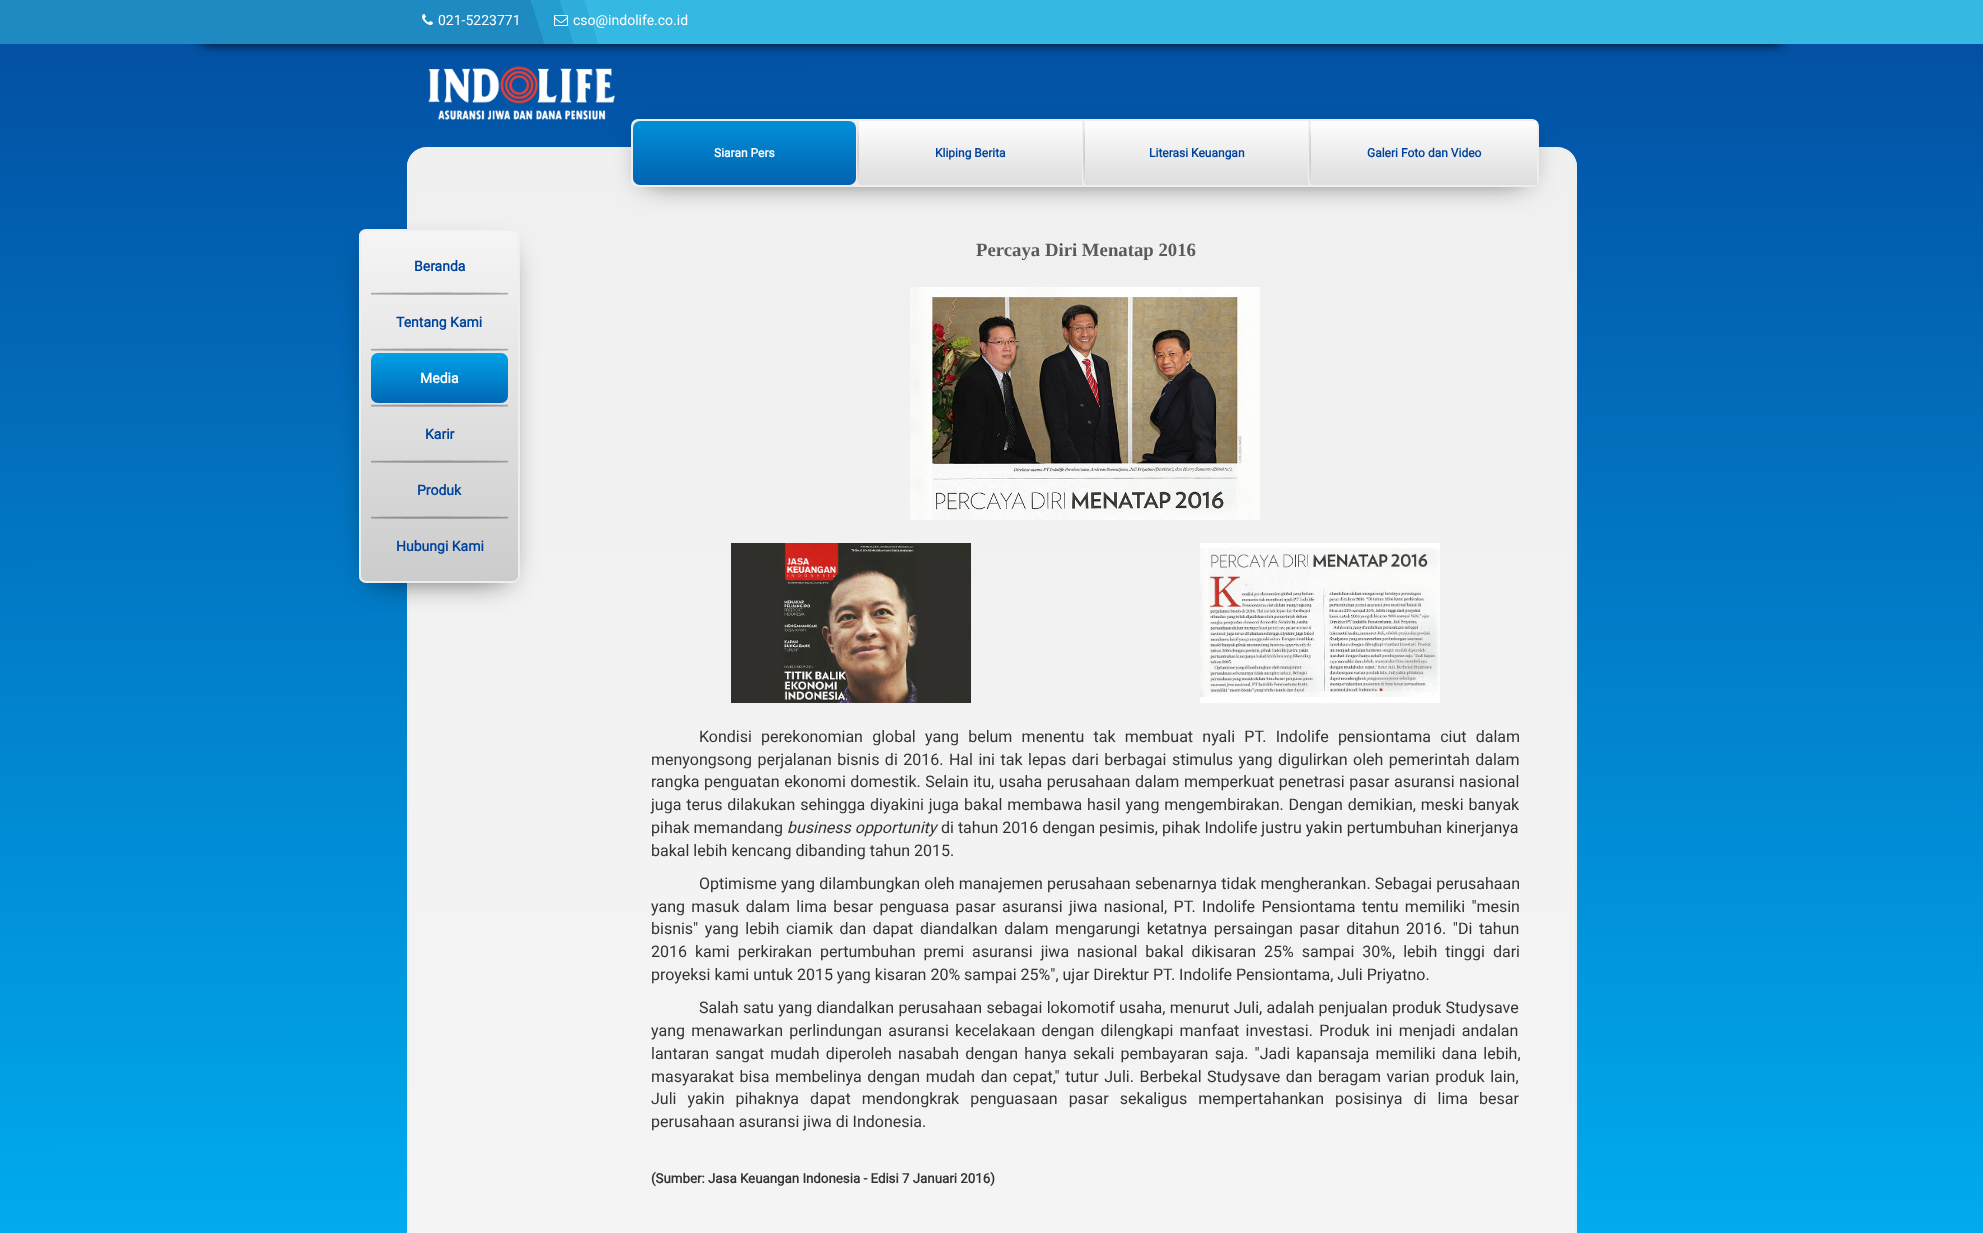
(async () => {
const canvas = document.querySelector("canvas")
canvas.width = 1983
canvas.height = 1233
const c = canvas.getContext("2d")
c.miterLimit = 4
c.fontKerning = "normal"
function T(s,x,y){c.fillText(s,x,y)}
function R(x,y,w,h){c.fillRect(x,y,w,h)}
function Q(x,y,w,h,r){c.beginPath();c.roundRect(x,y,w,h,r);c.fill()}
async function I(src,x,y,w,h){const img=new Image();img.src=src;await img.decode();c.drawImage(img,x,y,w,h)}
let gradient, path
c.fillStyle="#fff"
R(0,0,1983,1233)
gradient = c.createLinearGradient(991,0,992,1233)
gradient.addColorStop(0,"#034da1")
gradient.addColorStop(1,"#00abee")
c.fillStyle = gradient
R(0,44,1983,1189)
c.fillStyle="#000000e6"
c.filter="blur(6px)"
c.beginPath()
c.roundRect(198,0,1587,44,11)
c.fill()
c.filter="none"
c.fillStyle="#35b8e2"
R(598,0,1385,44)
await I("1.png",0,0,598,44)
await I("2.png",422,14,11,11)
c.font="14px Roboto"
c.fillStyle="#fff"
T("021-5223771",438,25)
await I("3.png",554,15,14,11)
T("cso@indolife.co.id",573,25)
await I("4.png",428,66,187,54)
c.save()
path = new Path2D("M427 147h1130c11 0 20 9 20 20v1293h-1170v-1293c0-11 9-20 20-20z")
c.clip(path)
gradient = c.createLinearGradient(992,149,992,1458)
gradient.addColorStop(0,"#f0f0f0")
gradient.addColorStop(1,"#f5f5f5")
c.fillStyle = gradient
R(407,149,1170,1084)
c.restore()
path = new Path2D("M427 148h1130c10.5 0 19 8.5 19 19v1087h-1168v-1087c0-10.5 8.5-19 19-19z")
c.strokeStyle="#eee"
c.lineWidth=2
c.stroke(path)
c.fillStyle="#000000bf"
c.filter="blur(15px)"
c.beginPath()
c.rect(374,254,131,324)
c.fill()
c.filter="none"
c.save()
c.beginPath()
c.roundRect(359,229,161,354,7)
c.clip()
gradient = c.createLinearGradient(440,231,440,581)
gradient.addColorStop(0,"#f5f5f5")
gradient.addColorStop(1,"#ccc")
c.fillStyle = gradient
R(359,231,161,350)
c.restore()
c.beginPath()
c.roundRect(360,230,159,352,6)
c.stroke()
await I("5.png",371,292,137,3)
c.font="bold 14px Roboto"
c.fillStyle="#00439b"
T("Beranda",414,271)
await I("6.png",371,348,137,3)
T("Tentang Kami",396,327)
await I("7.png",371,404,137,3)
gradient = c.createLinearGradient(440,353,440,403)
gradient.addColorStop(0,"#00a2e7")
gradient.addColorStop(1,"#0267b5")
c.fillStyle = gradient
Q(371,353,137,50,7)
c.fillStyle="#fff"
T("Media",420,383)
await I("8.png",371,460,137,3)
c.fillStyle="#00439b"
T("Karir",425,439)
await I("9.png",371,516,137,3)
T("Produk",417,495)
T("Hubungi Kami",396,551)
c.fillStyle="#000000bf"
c.filter="blur(15px)"
c.beginPath()
c.rect(646,141,878,38)
c.fill()
c.filter="none"
c.fillStyle="#eee"
c.beginPath()
c.roundRect(632,120,906,66,6)
c.fill()
c.stroke()
await I("10.png",857,129,2,55)
gradient = c.createLinearGradient(745,121,745,185)
gradient.addColorStop(0,"#0190d8")
gradient.addColorStop(1,"#0262b1")
c.fillStyle = gradient
Q(633,121,223,64,7)
c.font="bold 12px Roboto"
c.fillStyle="#fff"
T("Siaran Pers",714,157)
await I("10.png",1083,129,2,55)
gradient = c.createLinearGradient(971,121,971,185)
gradient.addColorStop(0,"#fefefe")
gradient.addColorStop(1,"#ddd")
c.fillStyle = gradient
R(859,121,223,64)
c.fillStyle="#00439b"
T("Kliping Berita",935,157)
await I("10.png",1309,129,2,55)
gradient = c.createLinearGradient(1197,121,1197,185)
gradient.addColorStop(0,"#fefefe")
gradient.addColorStop(1,"#ddd")
c.fillStyle = gradient
R(1085,121,223,64)
c.fillStyle="#00439b"
T("Literasi Keuangan",1149,157)
gradient = c.createLinearGradient(1424,121,1424,185)
gradient.addColorStop(0,"#fefefe")
gradient.addColorStop(1,"#ddd")
c.fillStyle = gradient
R(1311,121,226,64)
c.fillStyle="#00439b"
T("Galeri Foto dan Video",1367,157)
c.font="bold 18.75px Liberation Serif"
c.fillStyle="#5a5a5a"
T("Percaya Diri Menatap 2016",976,256)
await I("11.png",910,287,350,233)
await I("12.png",731,543,240,160)
await I("13.png",1200,543,240,160)
c.wordSpacing="5.25px"
c.font="16px Roboto"
c.fillStyle="#333"
T("Kondisi perekonomian global yang belum menentu tak membuat nyali PT. Indolife pensiontama ciut dalam",699,742)
c.wordSpacing="1.5px"
T("menyongsong perjalanan bisnis di 2016. Hal ini tak lepas dari berbagai stimulus yang digulirkan oleh pemerintah dalam",651,765)
c.wordSpacing="0.6px"
T("rangka penguatan ekonomi domestik. Selain itu, usaha perusahaan dalam memperkuat penetrasi pasar asuransi nasional",651,787)
c.wordSpacing="0.9px"
T("juga terus dilakukan sehingga diyakini juga bakal membawa hasil yang mengembirakan. Dengan demikian, meski banyak",651,810)
c.wordSpacing="0px"
T("pihak memandang",651,833)
c.font="italic 16px Roboto"
T("business opportunity",787,833)
c.font="16px Roboto"
T("di tahun 2016 dengan pesimis, pihak Indolife justru yakin pertumbuhan kinerjanya",941,833)
T("bakal lebih kencang dibanding tahun 2015.",651,856)
c.wordSpacing="0.25px"
T("Optimisme yang dilambungkan oleh manajemen perusahaan sebenarnya tidak mengherankan. Sebagai perusahaan",699,889)
c.wordSpacing="2.4px"
T("yang masuk dalam lima besar penguasa pasar asuransi jiwa nasional, PT. Indolife Pensiontama tentu memiliki \"mesin",651,912)
c.wordSpacing="2.6px"
T("bisnis\" yang lebih ciamik dan dapat diandalkan dalam mengarungi ketatnya persaingan pasar ditahun 2016. \"Di tahun",651,934)
c.wordSpacing="4px"
T("2016 kami perkirakan pertumbuhan premi asuransi jiwa nasional bakal dikisaran 25% sampai 30%, lebih tinggi dari",651,957)
c.wordSpacing="0px"
T("proyeksi kami untuk 2015 yang kisaran 20% sampai 25%\", ujar Direktur PT. Indolife Pensiontama, Juli Priyatno.",651,980)
c.wordSpacing="0.3px"
T("Salah satu yang diandalkan perusahaan sebagai lokomotif usaha, menurut Juli, adalah penjualan produk Studysave",699,1013)
c.wordSpacing="2.25px"
T("yang menawarkan perlindungan asuransi kecelakaan dengan dilengkapi manfaat investasi. Produk ini menjadi andalan",651,1036)
T("lantaran sangat mudah diperoleh nasabah dengan hanya sekali pembayaran saja. \"Jadi kapansaja memiliki dana lebih,",651,1059)
c.wordSpacing="1.6px"
T("masyarakat bisa membelinya dengan mudah dan cepat,\" tutur Juli. Berbekal Studysave dan beragam varian produk lain,",651,1082)
c.wordSpacing="7.1px"
T("Juli yakin pihaknya dapat mendongkrak penguasaan pasar sekaligus mempertahankan posisinya di lima besar",651,1104)
c.wordSpacing="0px"
T("perusahaan asuransi jiwa di Indonesia.",651,1127)
c.font="bold 13.3px Roboto"
T("(Sumber: Jasa Keuangan Indonesia - Edisi 7 Januari 2016)",651,1183)
})()
